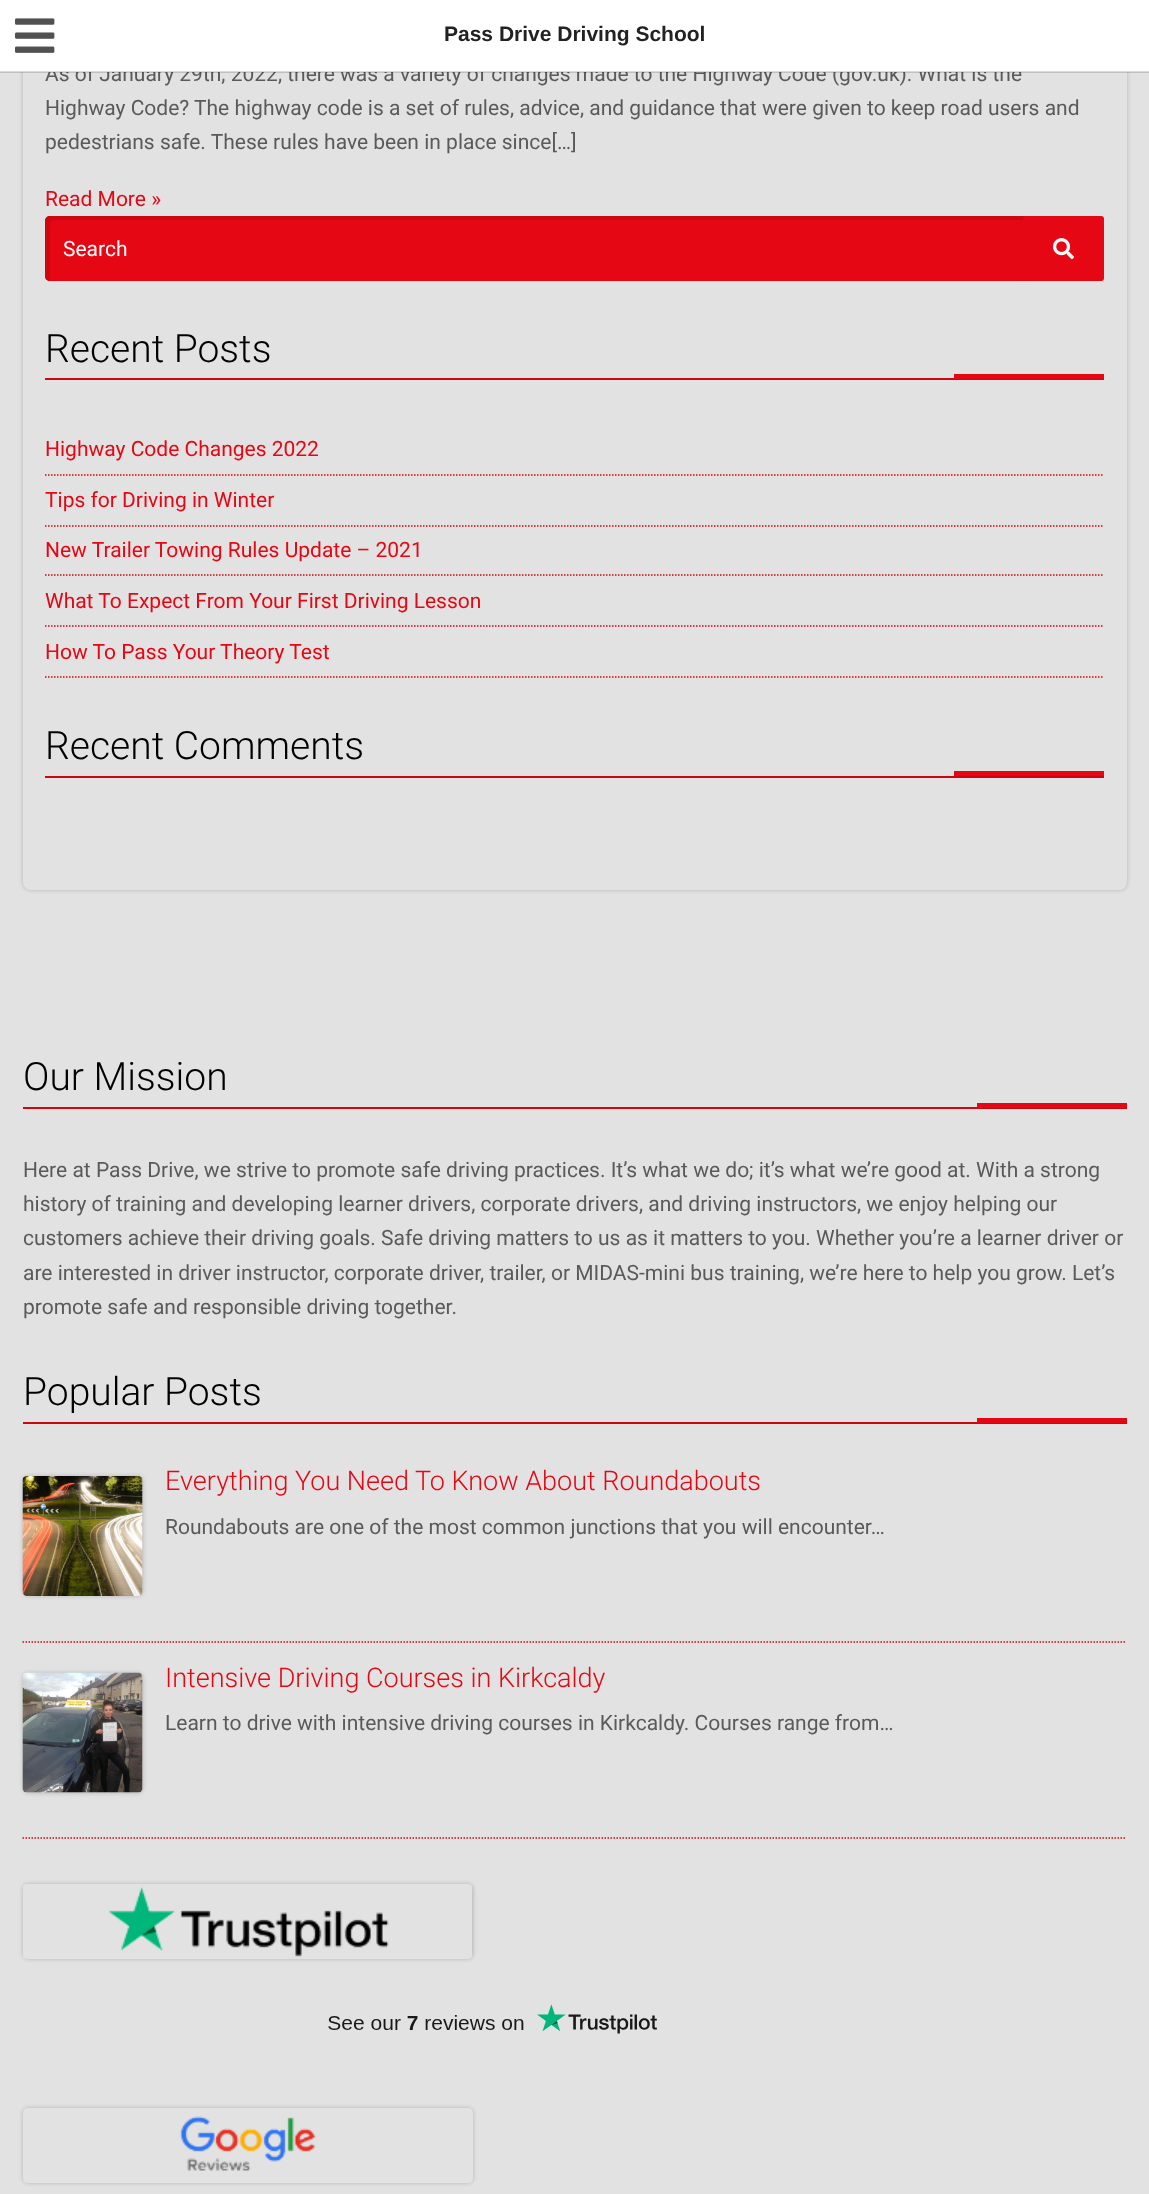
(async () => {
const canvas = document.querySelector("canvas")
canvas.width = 1149
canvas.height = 2194
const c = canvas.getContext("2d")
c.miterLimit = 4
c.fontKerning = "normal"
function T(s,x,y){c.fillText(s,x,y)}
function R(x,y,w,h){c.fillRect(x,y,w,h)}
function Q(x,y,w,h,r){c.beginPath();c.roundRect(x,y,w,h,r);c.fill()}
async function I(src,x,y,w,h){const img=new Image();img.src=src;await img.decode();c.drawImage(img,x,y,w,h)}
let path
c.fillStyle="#e2e2e2"
R(0,0,1149,2194)
c.fillStyle="#00000033"
c.filter="blur(2px)"
c.beginPath()
c.roundRect(23,-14,1104,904,8)
c.fill()
c.filter="none"
c.fillStyle="#e2e2e2"
Q(23,-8,1104,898,8)
c.font="21px Roboto"
c.fillStyle="#5a5a5a"
T("As of January 29th, 2022, there was a variety of changes made to the Highway Code (gov.uk). What is the",45,81)
c.fillStyle="#fff"
R(0,0,1149,72)
c.fillStyle="#00000026"
R(0,71,1149,2)
await I("1.png",15,18,40,35)
c.font="bold 21px Liberation Sans"
c.fillStyle="#222"
T("Pass Drive Driving School",444,41)
c.font="21px Roboto"
c.fillStyle="#5a5a5a"
T("Highway Code? The highway code is a set of rules, advice, and guidance that were given to keep road users and",45,115)
T("pedestrians safe. These rules have been in place since[…]",45,149)
c.fillStyle="#e50714"
T("Read More »",45,206)
Q(45,216,1059,65,5)
c.fillStyle="#ce0612"
path = new Path2D("M54 220h1050c-1-2-3-4-5-4h-1049c-3 0-5 2-5 5v55c0 3 2 5 5 5v-47c0-1-2-14 4-14z")
c.fill(path)
c.fillStyle="#fff"
T("Search",63,256)
c.fillStyle="#e50714"
Q(1023,216,81,65,3)
await I("2.png",1053,238,21,22)
c.fillStyle="#ce0612"
R(45,378,1059,2)
c.font="300 39px Roboto"
c.fillStyle="#000"
T("Recent Posts",45,362)
c.fillStyle="#e50714"
R(954,374,150,5)
path = new Path2D("M45 475h1059")
c.strokeStyle="#ce0612"
c.lineWidth=1.5
c.setLineDash([1.5,1.5])
c.stroke(path)
c.font="21px Roboto"
T("Highway Code Changes 2022",45,456)
path = new Path2D("M45 526h1059")
c.stroke(path)
T("Tips for Driving in Winter",45,507)
path = new Path2D("M45 575h1059")
c.stroke(path)
T("New Trailer Towing Rules Update – 2021",45,557)
path = new Path2D("M45 626h1059")
c.stroke(path)
T("What To Expect From Your First Driving Lesson",45,608)
path = new Path2D("M45 677h1059")
c.stroke(path)
T("How To Pass Your Theory Test",45,659)
c.fillStyle="#ce0612"
R(45,776,1059,2)
c.font="300 39px Roboto"
c.fillStyle="#000"
T("Recent Comments",45,759)
c.fillStyle="#e50714"
R(954,771,150,5)
c.fillStyle="#ce0612"
R(23,1107,1104,2)
c.fillStyle="#000"
T("Our Mission",23,1090)
c.fillStyle="#e50714"
R(977,1103,150,5)
c.font="21px Roboto"
c.fillStyle="#5a5a5a"
T("Here at Pass Drive, we strive to promote safe driving practices. It’s what we do; it’s what we’re good at. With a strong",23,1177)
T("history of training and developing learner drivers, corporate drivers, and driving instructors, we enjoy helping our",23,1211)
T("customers achieve their driving goals. Safe driving matters to us as it matters to you. Whether you’re a learner driver or",23,1245)
T("are interested in driver instructor, corporate driver, trailer, or MIDAS-mini bus training, we’re here to help you grow. Let’s",23,1280)
T("promote safe and responsible driving together.",23,1314)
c.fillStyle="#ce0612"
R(23,1422,1104,2)
c.font="300 39px Roboto"
c.fillStyle="#000"
T("Popular Posts",23,1405)
c.fillStyle="#e50714"
R(977,1418,150,5)
path = new Path2D("M22.5 1642h1104")
c.stroke(path)
c.fillStyle="#00000033"
c.filter="blur(2px)"
c.beginPath()
c.roundRect(23,1476,120,120,5)
c.fill()
c.filter="none"
await I("3.png",22,1476,121,120)
c.font="300 27px Roboto"
c.fillStyle="#e50714"
T("Everything You Need To Know About Roundabouts",165,1490)
c.font="21px Roboto"
c.fillStyle="#5a5a5a"
T("Roundabouts are one of the most common junctions that you will encounter…",165,1534)
path = new Path2D("M22.5 1838h1104")
c.stroke(path)
c.fillStyle="#00000033"
c.filter="blur(2px)"
c.beginPath()
c.roundRect(23,1673,120,120,5)
c.fill()
c.filter="none"
await I("4.png",22,1672,121,121)
c.font="300 27px Roboto"
c.fillStyle="#e50714"
T("Intensive Driving Courses in Kirkcaldy",165,1687)
c.font="21px Roboto"
c.fillStyle="#5a5a5a"
T("Learn to drive with intensive driving courses in Kirkcaldy. Courses range from…",165,1730)
c.fillStyle="#00000033"
c.filter="blur(2px)"
c.beginPath()
c.roundRect(23,1884,450,75,5)
c.fill()
c.filter="none"
await I("5.png",23,1884,449,75)
await I("6.png",328,2004,329,30)
c.save()
path = new Path2D("M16 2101h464v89h-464zm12 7h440c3 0 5 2 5 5v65c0 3-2 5-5 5h-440c-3 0-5-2-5-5v-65c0-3 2-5 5-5z")
c.clip(path,"evenodd")
c.filter="blur(2px)"
c.beginPath()
c.roundRect(23,2108,450,75,5)
c.fill()
c.filter="none"
c.restore()
await I("7.png",24,2116,448,66)
})()
